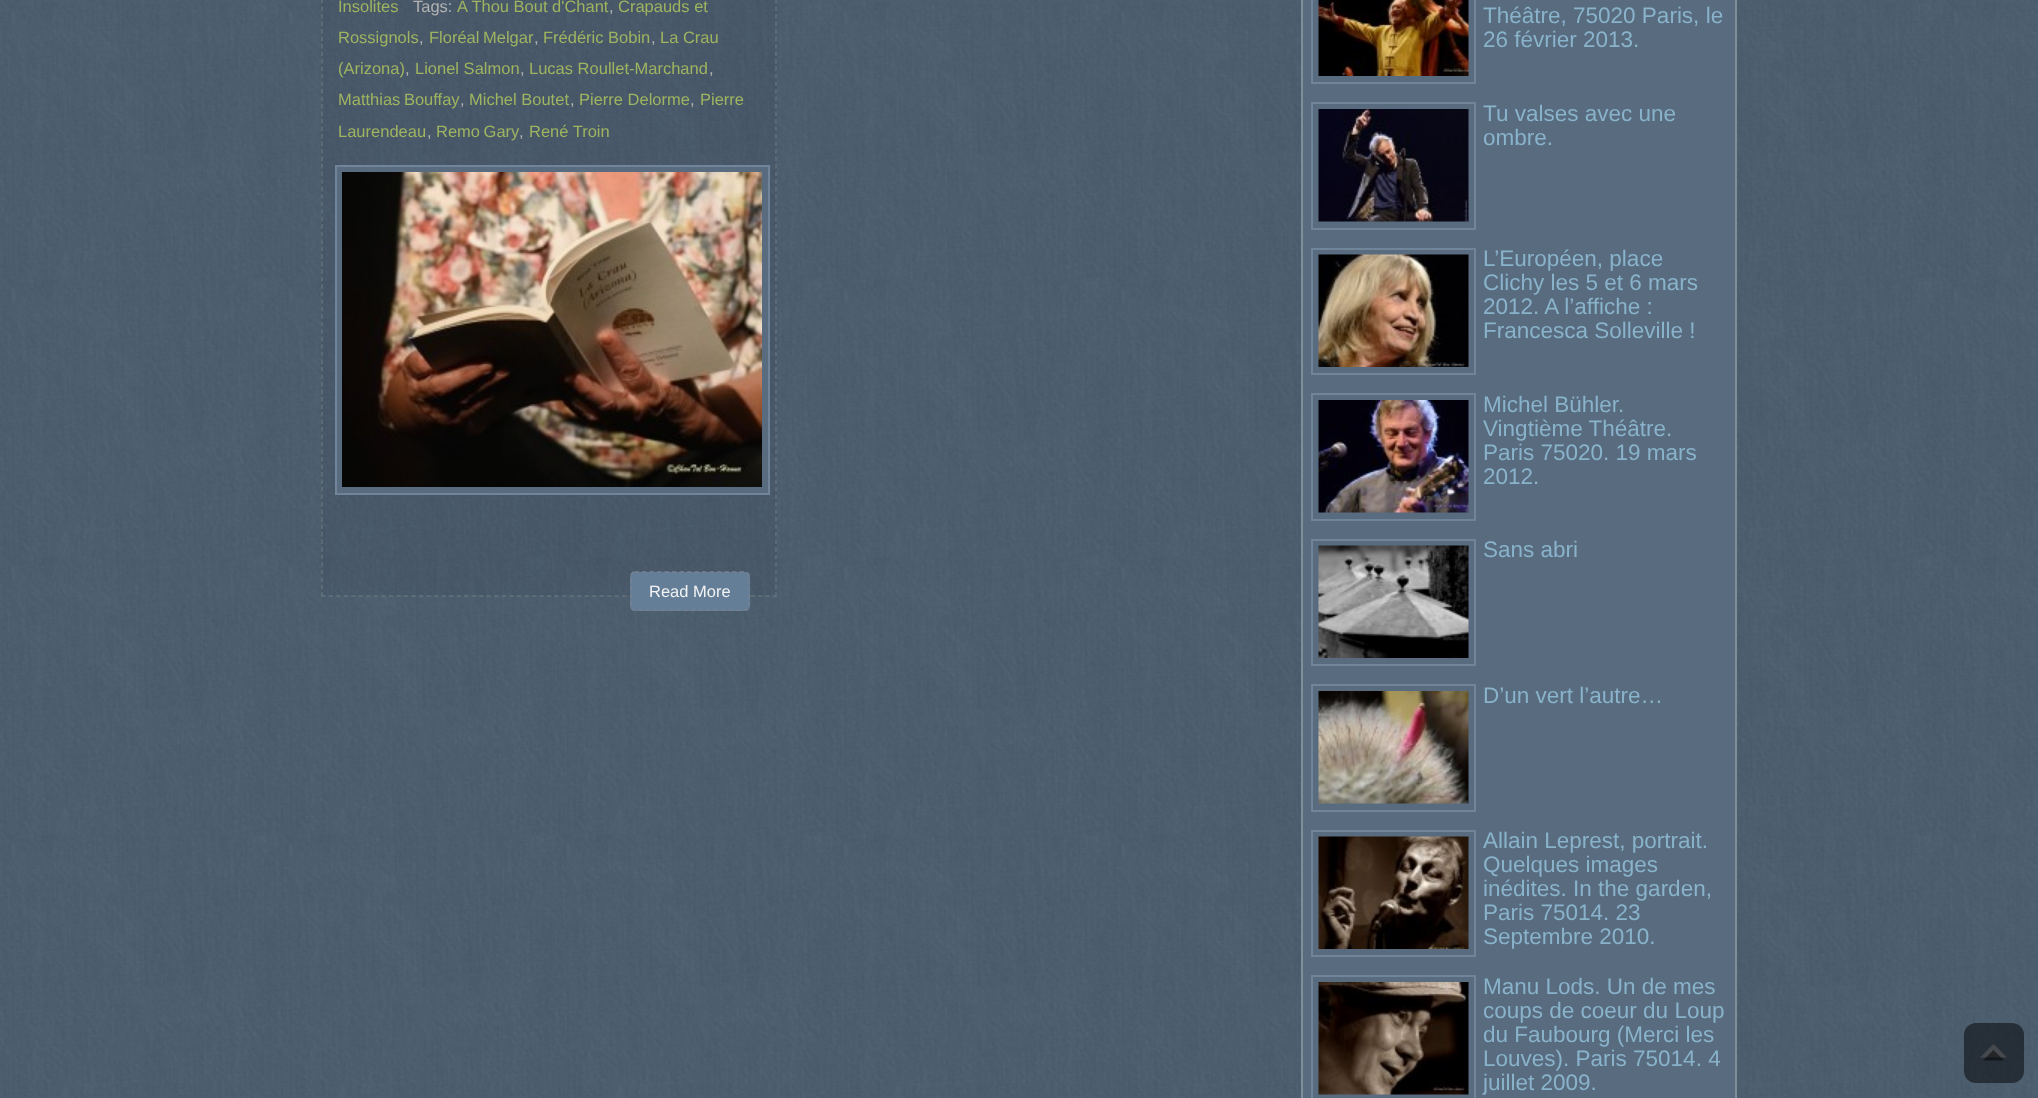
(async () => {
const canvas = document.querySelector("canvas")
canvas.width = 2038
canvas.height = 1098
const c = canvas.getContext("2d")
c.miterLimit = 4
c.fontKerning = "normal"
function T(s,x,y){c.fillText(s,x,y)}
function R(x,y,w,h){c.fillRect(x,y,w,h)}
function Q(x,y,w,h,r){c.beginPath();c.roundRect(x,y,w,h,r);c.fill()}
async function I(src,x,y,w,h){const img=new Image();img.src=src;await img.decode();c.drawImage(img,x,y,w,h)}
let path
c.fillStyle="#4e6276"
R(0,0,2038,1098)
await I("1.png",0,0,2038,1098)
c.fillStyle="#0000000d"
R(321,0,456,596)
path = new Path2D("M776-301.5v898.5")
c.strokeStyle="#64727a"
c.lineWidth=1.5
c.setLineDash([4.5,3.01])
c.stroke(path)
path = new Path2D("M321 596h456")
c.setLineDash([4.5,3.03])
c.stroke(path)
path = new Path2D("M322-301.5v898.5")
c.setLineDash([4.5,3.01])
c.stroke(path)
c.font="16.5px Liberation Sans"
c.fillStyle="#9fb460"
T("Insolites",338,12)
c.fillStyle="#b2b2b2"
T("Tags:",413,12)
c.fillStyle="#9fb460"
T("A Thou Bout d'Chant",457,12)
c.fillStyle="#b2b2b2"
T(",",609,12)
c.fillStyle="#9fb460"
T("Crapauds et",618,12)
T("Rossignols",338,43)
c.fillStyle="#b2b2b2"
T(",",419,43)
c.wordSpacing="-1px"
c.fillStyle="#9fb460"
T("Floréal Melgar",429,43)
c.wordSpacing="0px"
c.fillStyle="#b2b2b2"
T(",",534,43)
c.fillStyle="#9fb460"
T("Frédéric Bobin",543,43)
c.fillStyle="#b2b2b2"
T(",",651,43)
c.fillStyle="#9fb460"
T("La Crau",660,43)
T("(Arizona)",338,74)
c.fillStyle="#b2b2b2"
T(",",405,74)
c.fillStyle="#9fb460"
T("Lionel Salmon",415,74)
c.fillStyle="#b2b2b2"
T(",",520,74)
c.fillStyle="#9fb460"
T("Lucas Roullet-Marchand",529,74)
c.fillStyle="#b2b2b2"
T(",",709,74)
c.wordSpacing="-1px"
c.fillStyle="#9fb460"
T("Matthias Bouffay",338,105)
c.wordSpacing="0px"
c.fillStyle="#b2b2b2"
T(",",460,105)
c.fillStyle="#9fb460"
T("Michel Boutet",469,105)
c.fillStyle="#b2b2b2"
T(",",570,105)
c.fillStyle="#9fb460"
T("Pierre Delorme",579,105)
c.fillStyle="#b2b2b2"
T(",",690,105)
c.fillStyle="#9fb460"
T("Pierre",700,105)
T("Laurendeau",338,137)
c.fillStyle="#b2b2b2"
T(",",427,137)
c.wordSpacing="-1px"
c.fillStyle="#9fb460"
T("Remo Gary",436,137)
c.wordSpacing="0px"
c.fillStyle="#b2b2b2"
T(",",519,137)
c.fillStyle="#9fb460"
T("René Troin",529,137)
c.fillStyle="#586b7f"
c.beginPath()
c.rect(336,166,433,328)
c.fill()
c.strokeStyle="#70849a"
c.lineWidth=2
c.setLineDash([])
c.stroke()
await I("2.png",342,172,420,315)
c.fillStyle="#647e98"
Q(630,572,120,39,5)
path = new Path2D("M634.5 572h111c2 0 3.5 2 3.5 4v30c0 2-1.5 4-3.5 4h-111c-2 0-3.5-2-3.5-4v-30c0-2 1.5-4 3.5-4z")
c.strokeStyle="#758291"
c.lineWidth=1.5
c.setLineDash([4.5,3])
c.stroke(path)
c.fillStyle="#f3f3f3"
T("Read More",649,597)
c.fillStyle="#586b7f"
c.beginPath()
c.rect(1302,-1,434,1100)
c.fill()
c.strokeStyle="#808f97"
c.lineWidth=2
c.setLineDash([])
c.stroke()
c.strokeStyle="#70849a"
c.strokeRect(1312,-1,163,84)
await I("3.png",1318,0,151,76)
c.font="22.5px Liberation Sans"
c.fillStyle="#89b3ca"
T("Théâtre, 75020 Paris, le",1483,23)
T("26 février 2013.",1483,47)
c.strokeRect(1312,103,163,126)
await I("4.png",1318,109,151,113)
T("Tu valses avec une",1483,121)
T("ombre.",1483,145)
c.strokeRect(1312,249,163,125)
await I("5.png",1318,254,151,113)
T("L’Européen, place",1483,266)
T("Clichy les 5 et 6 mars",1483,290)
T("2012. A l’affiche :",1483,314)
T("Francesca Solleville !",1483,338)
c.strokeRect(1312,394,163,126)
await I("6.png",1318,400,151,113)
T("Michel Bühler.",1483,412)
T("Vingtième Théâtre.",1483,436)
T("Paris 75020. 19 mars",1483,460)
T("2012.",1483,484)
c.strokeRect(1312,540,163,125)
await I("7.png",1318,545,151,113)
T("Sans abri",1483,557)
c.strokeRect(1312,685,163,126)
await I("8.png",1318,691,151,113)
T("D’un vert l’autre…",1483,703)
c.strokeRect(1312,831,163,125)
await I("9.png",1318,836,151,113)
T("Allain Leprest, portrait.",1483,848)
T("Quelques images",1483,872)
T("inédites. In the garden,",1483,896)
T("Paris 75014. 23",1483,920)
T("Septembre 2010.",1483,944)
c.strokeRect(1312,976,163,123)
await I("10.png",1318,982,151,113)
T("Manu Lods. Un de mes",1483,994)
T("coups de coeur du Loup",1483,1018)
T("du Faubourg (Merci les",1483,1042)
T("Louves). Paris 75014. 4",1483,1066)
T("juillet 2009.",1483,1090)
c.fillStyle="#00000080"
Q(1964,1023,60,60,12)
c.fillStyle="#66666680"
path = new Path2D("M2007 1057.5h-27l13.5-13.5z")
c.fill(path)
c.fillStyle="#00000080"
path = new Path2D("M2004 1060.5h-21l10.5-10.5z")
c.fill(path)
})()
